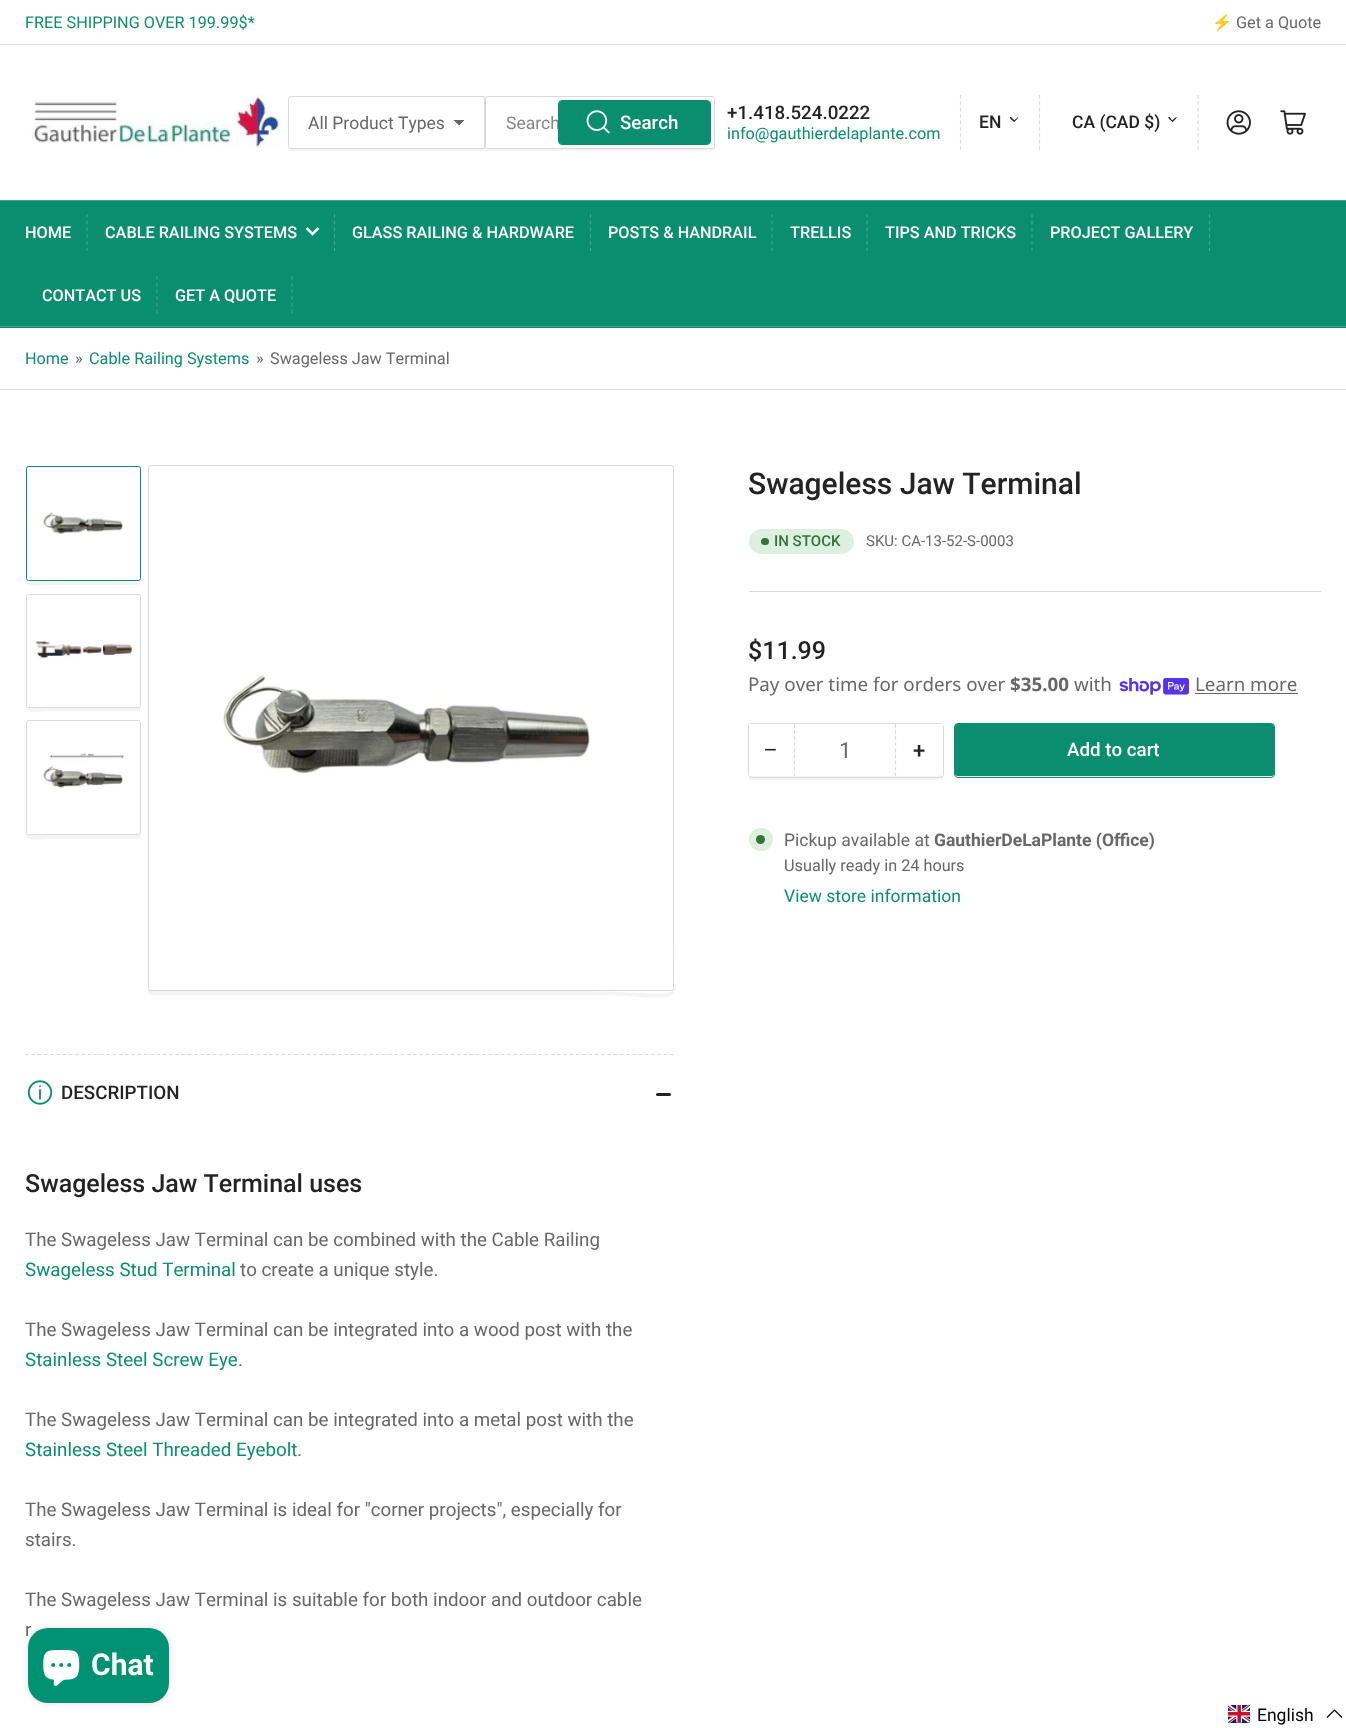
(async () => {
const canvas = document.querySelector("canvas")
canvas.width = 1346
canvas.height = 1728
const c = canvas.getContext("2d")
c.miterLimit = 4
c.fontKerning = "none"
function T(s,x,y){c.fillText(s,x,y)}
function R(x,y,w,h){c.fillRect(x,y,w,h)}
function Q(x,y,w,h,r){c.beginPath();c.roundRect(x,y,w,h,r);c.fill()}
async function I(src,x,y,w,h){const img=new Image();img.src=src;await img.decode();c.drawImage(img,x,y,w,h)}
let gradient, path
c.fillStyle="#fff"
R(0,0,1346,1728)
c.fillStyle="#dadada"
R(0,44,1346,1)
c.font="16.25px Roboto"
c.fillStyle="#0b8e6f"
T("FREE SHIPPING OVER 199.99$*",25,28)
c.font="16.25px Noto Color Emoji"
c.fillStyle="#676767"
T("⚡",1212,28)
c.font="16.25px Roboto"
T("Get a Quote",1236,28)
await I("1.png",31,94,249,55)
c.beginPath()
c.roundRect(288.5,96.5,196,52,2)
c.strokeStyle="#dadada"
c.stroke()
c.fillStyle="#dadada4d"
path = new Path2D("M288 148c0 1 1 3 2 3h195v-2h-195z")
c.fill(path)
c.fillStyle="#fff"
c.beginPath()
c.roundRect(288,96,197,53,[2.5,0,0,2.5])
c.fill()
gradient = c.createLinearGradient(459,119,465,126)
gradient.addColorStop(.5,"#676767")
gradient.addColorStop(.5,"#fff")
c.fillStyle = gradient
R(459,120,6,5)
gradient = c.createLinearGradient(453,126,459,119)
gradient.addColorStop(.5,"#fff")
gradient.addColorStop(.5,"#676767")
c.fillStyle = gradient
R(453,120,6,5)
c.beginPath()
c.roundRect(288.5,96.5,196,52,[2,0,0,2])
c.stroke()
c.font="17.5px Roboto"
c.fillStyle="#676767"
T("All Product Types",308,129)
c.fillStyle="#f4f4f4"
path = new Path2D("M485 146c0 2 0 5 3 5h224c3 0 3-3 3-5c0 2-1 3-3 3h-224c-2 0-3-1-3-3z")
c.fill(path)
c.beginPath()
c.roundRect(485.5,96.5,229,52,2)
c.stroke()
c.fillStyle="#858585"
T("Search",506,129)
c.beginPath()
c.roundRect(558.5,100.5,152,44,3.5)
c.strokeStyle="#0b8e6f"
c.stroke()
c.fillStyle="#0b8e6f"
Q(559,101,151,43,2.5)
await I("2.png",586,110,24,24)
c.font="500 18.75px Roboto"
c.fillStyle="#fff"
T("Search",620,129)
c.fillStyle="#232323"
T("+1.418.524.0222",727,119)
c.font="16.25px Roboto"
c.fillStyle="#0b8e6f"
T("info@gauthierdelaplante.com",727,139)
path = new Path2D("M1039.5 95v55")
c.strokeStyle="#dadada"
c.lineWidth=1.2
c.setLineDash([3.75,2.65])
c.stroke(path)
path = new Path2D("M960.5 95v55")
c.stroke(path)
c.font="500 17.5px Roboto"
c.fillStyle="#232323"
T("EN",979,128)
path = new Path2D("M1011 117l3 3c1.5 1.5 .5 2.5-1 1c-.5-.5-4-3-3-4z")
c.fill(path)
path = new Path2D("M1014 120.5l3-2.5c1-1.5 2-1 .5 .5c-.5 .5-3 4-3.5 3z")
c.fill(path)
path = new Path2D("M1198 95v55")
c.stroke(path)
T("CA (CAD $)",1072,128)
path = new Path2D("M1169.5 117l2.5 3c1.5 1.5 1 2.5-.5 1c-.5-.5-4-3-3-4z")
c.fill(path)
path = new Path2D("M1172 120.5l3-2.5c1.5-1.5 2.5-1 1 .5c-.5 .5-3 4-4 3z")
c.fill(path)
await I("3.png",1226,110,25,25)
await I("4.png",1280,110,26,25)
c.fillStyle="#0b8e6f"
R(0,201,1346,127)
c.fillStyle="#3ca58c"
R(0,200,1346,1)
R(0,326,1346,1)
c.font="500 16.25px Roboto"
c.fillStyle="#fff"
T("HOME",25,238)
path = new Path2D("M87 214v37")
c.strokeStyle="#3ca58c"
c.setLineDash([3.75,3])
c.stroke(path)
T("CABLE RAILING SYSTEMS",105,238)
path = new Path2D("M317.5 229l-5 5l-5-5")
c.strokeStyle="#fff"
c.lineWidth=2.5
c.lineCap="square"
c.setLineDash([])
c.stroke(path)
path = new Path2D("M334.5 214v37")
c.strokeStyle="#3ca58c"
c.lineWidth=1.2
c.lineCap="butt"
c.setLineDash([3.75,3])
c.stroke(path)
T("GLASS RAILING & HARDWARE",352,238)
path = new Path2D("M590.5 214v37")
c.stroke(path)
T("POSTS & HANDRAIL",608,238)
path = new Path2D("M772 214v37")
c.stroke(path)
T("TRELLIS",790,238)
path = new Path2D("M867 214v37")
c.stroke(path)
T("TIPS AND TRICKS",885,238)
path = new Path2D("M1032 214v37")
c.stroke(path)
T("PROJECT GALLERY",1050,238)
path = new Path2D("M1209.5 214v37")
c.stroke(path)
T("CONTACT US",42,301)
path = new Path2D("M157 276v38")
c.stroke(path)
T("GET A QUOTE",175,301)
path = new Path2D("M292 276v38")
c.stroke(path)
c.fillStyle="#dadada"
R(0,389,1346,1)
c.font="16.25px Roboto"
c.fillStyle="#0b8e6f"
T("Home",25,364)
c.fillStyle="#676767"
T("»",75,364)
c.fillStyle="#0b8e6f"
T("Cable Railing Systems",89,364)
c.fillStyle="#676767"
T("»",256,364)
T("Swageless Jaw Terminal",270,364)
c.fillStyle="#f4f4f4"
path = new Path2D("M26 471v111c0 6 18 3 21 3h91c3 0 3-3 3-5c0 1-1 1-2 1h-110c-2 0-3-1-3-2z")
c.fill(path)
c.beginPath()
c.roundRect(26.5,466.5,114,114,2)
c.strokeStyle="#0b8e6f"
c.lineWidth=1
c.setLineDash([])
c.stroke()
await I("5.png",42,512,81,23)
path = new Path2D("M26 599v109c0 6 18 3 21 3h91c3 0 3-3 3-5c0 1-1 2-2 2h-110c-2 0-3-2-3-3z")
c.fill(path)
c.fillStyle="#fff"
c.beginPath()
c.roundRect(26.5,594.5,114,113,2)
c.fill()
c.strokeStyle="#dadada"
c.stroke()
await I("6.png",35,639,98,20)
c.fillStyle="#f4f4f4"
path = new Path2D("M26 725v111c0 6 18 3 21 3h91c3 0 3-3 3-5c0 0-1 1-2 1h-110c-2 0-3-1-3-3z")
c.fill(path)
c.beginPath()
c.roundRect(26.5,720.5,114,114,2)
c.stroke()
await I("7.png",42,752,82,37)
gradient = c.createLinearGradient(83,874,83,830)
gradient.addColorStop(0,"#fff")
gradient.addColorStop(1,"#ffffff00")
c.fillStyle = gradient
R(27,834,113,1)
c.fillStyle="#f4f4f4"
path = new Path2D("M148 990c0 2 0 4 2 5h435c116 0 89 27 89-89v-436v432c0 117 27 89-90 89h-434z")
c.fill(path)
c.fillStyle="#fff"
c.beginPath()
c.roundRect(148.5,465.5,525,525,2)
c.fill()
c.stroke()
await I("8.png",221,675,371,99)
c.fillStyle="#dadada"
R(749,591,572,1)
c.font="500 30px Roboto"
c.fillStyle="#232323"
T("Swageless Jaw Terminal",748,494)
c.fillStyle="#ddf0df"
Q(749,529,105,25,12.5)
c.fillStyle="#337239"
Q(761,538,8,7,3.5)
c.font="500 15px Roboto"
T("IN STOCK",774,546)
c.font="15px Roboto"
c.fillStyle="#676767"
T("SKU: CA-13-52-S-0003",866,546)
c.font="500 25px Roboto"
c.fillStyle="#232323"
T("$11.99",748,659)
c.font="18.75px Noto Sans"
c.fillStyle="#676767"
T("Pay over time for orders over",748,691)
c.font="bold 18.75px Noto Sans"
T("$35.00",1010,691)
c.font="18.75px Noto Sans"
T("with",1074,691)
await I("9.png",1119,678,70,17)
T("Learn more",1195,691)
R(1195,693,103,1)
c.fillStyle="#f4f4f4"
path = new Path2D("M749 775v3c0 1 1 2 3 2h188c2 0 3-1 3-2v-48l-1-1v45c0 1-1 2-2 2h-189c-1 0-2 0-2-1z")
c.fill(path)
c.beginPath()
c.roundRect(748.5,723.5,195,54,3.5)
c.stroke()
c.fillStyle="#fff"
R(749,724,3,52)
c.font="22px Liberation Sans"
c.fillStyle="#232323"
T("−",764,757)
path = new Path2D("M895.5 724v52")
c.lineWidth=1.2
c.setLineDash([3.75,2.35])
c.stroke(path)
path = new Path2D("M794.5 724v52")
c.stroke(path)
c.font="22px Roboto"
c.fillStyle="#676767"
T("1",839,758)
c.fillStyle="#fff"
R(940,724,3,52)
c.font="500 22px Roboto"
c.fillStyle="#232323"
T("+",913,758)
c.beginPath()
c.roundRect(954.5,723.5,320,54,3.5)
c.strokeStyle="#0b8e6f"
c.lineWidth=1
c.setLineDash([])
c.stroke()
c.fillStyle="#0b8e6f"
Q(955,724,319,52,2.5)
c.font="500 18.75px Roboto"
c.fillStyle="#fff"
T("Add to cart",1067,756)
c.fillStyle="#ddf0df"
Q(749,828,24,23,11.5)
c.fillStyle="#337239"
c.beginPath()
c.arc(760.5,839.5,4.5,0,7)
c.fill()
c.font="17.5px Roboto"
c.fillStyle="#676767"
T("Pickup available at",784,846)
c.font="bold 17.5px Roboto"
T("GauthierDeLaPlante (Office)",934,846)
c.font="16.25px Roboto"
T("Usually ready in 24 hours",784,871)
c.font="17.5px Roboto"
c.fillStyle="#0b8e6f"
T("View store information",784,902)
path = new Path2D("M25 1054.5h649")
c.strokeStyle="#dadada"
c.lineWidth=1.2
c.setLineDash([3.75,2.51])
c.stroke(path)
await I("10.png",27,1080,26,25)
c.font="500 18.75px Roboto"
c.fillStyle="#232323"
T("DESCRIPTION",61,1099)
Q(656,1093,10,3,1.5)
Q(663,1093,8,3,1.5)
c.font="500 25px Roboto"
T("Swageless Jaw Terminal uses",25,1192)
c.font="18.75px Roboto"
c.fillStyle="#676767"
T("The Swageless Jaw Terminal can be combined with the Cable Railing",25,1246)
c.fillStyle="#0b8e6f"
T("Swageless Stud Terminal",25,1276)
c.fillStyle="#676767"
T("to create a unique style.",240,1276)
T("The Swageless Jaw Terminal can be integrated into a wood post with the",25,1336)
c.fillStyle="#0b8e6f"
T("Stainless Steel Screw Eye",25,1366)
c.fillStyle="#676767"
T(".",238,1366)
T("The Swageless Jaw Terminal can be integrated into a metal post with the",25,1426)
c.fillStyle="#0b8e6f"
T("Stainless Steel Threaded Eyebolt",25,1456)
c.fillStyle="#676767"
T(".",297,1456)
T("The Swageless Jaw Terminal is ideal for \"corner projects\", especially for",25,1516)
T("stairs.",25,1546)
T("The Swageless Jaw Terminal is suitable for both indoor and outdoor cable",25,1606)
T("r",25,1636)
c.fillStyle="#00000026"
c.filter="blur(3px)"
c.beginPath()
c.roundRect(28,1628,141,75,20)
c.fill()
c.filter="none"
c.fillStyle="#019273"
Q(28,1628,141,75,20)
await I("11.png",43,1650,37,36)
c.font="bold 30px Roboto"
c.fillStyle="#fff"
T("Chat",91,1675)
await I("12.png",1228,1705,22,18)
c.font="17.5px Roboto"
c.fillStyle="#000"
T("English",1257,1721)
path = new Path2D("M1342 1717.5l-7.5-7.5l-7.5 7.5")
c.strokeStyle="#000"
c.setLineDash([])
c.stroke(path)
})()
